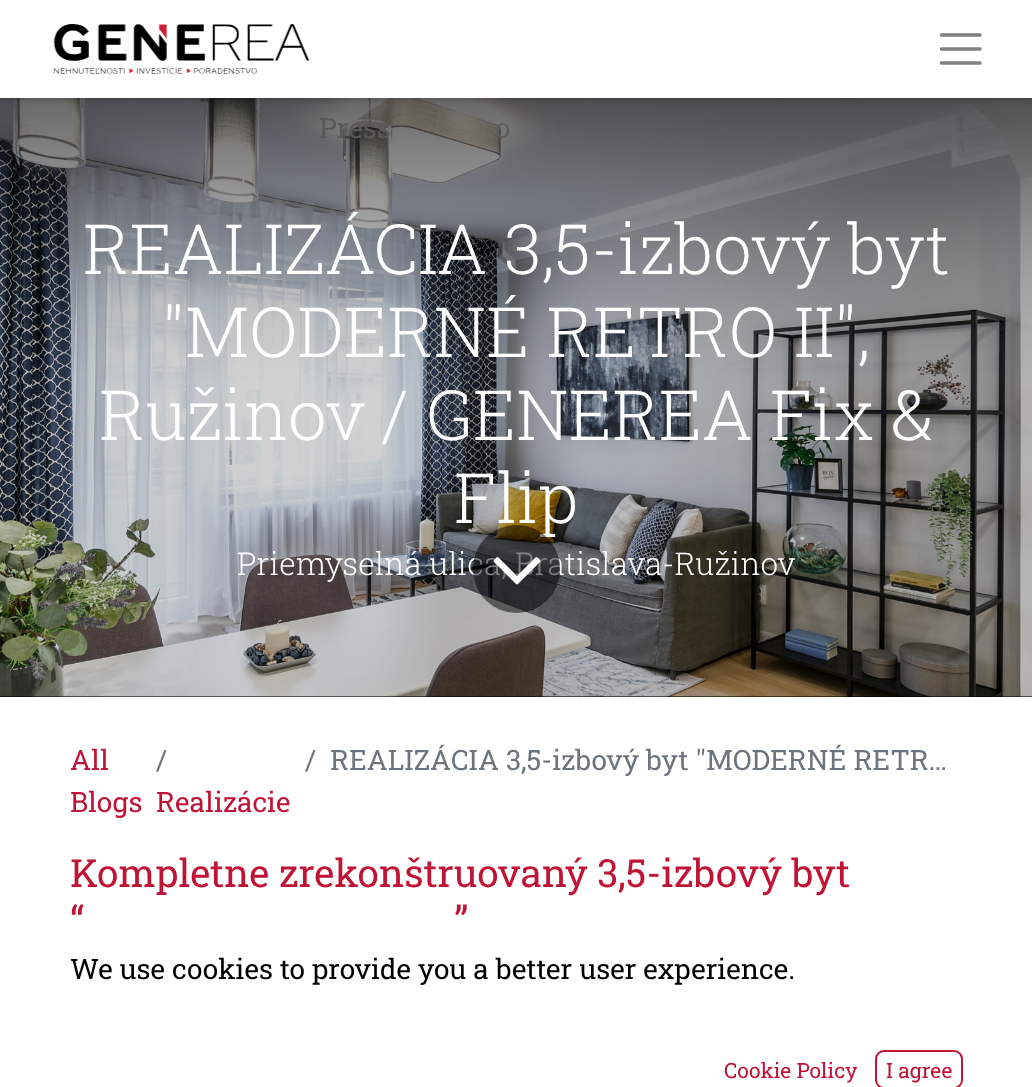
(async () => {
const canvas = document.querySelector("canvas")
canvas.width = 1032
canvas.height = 1087
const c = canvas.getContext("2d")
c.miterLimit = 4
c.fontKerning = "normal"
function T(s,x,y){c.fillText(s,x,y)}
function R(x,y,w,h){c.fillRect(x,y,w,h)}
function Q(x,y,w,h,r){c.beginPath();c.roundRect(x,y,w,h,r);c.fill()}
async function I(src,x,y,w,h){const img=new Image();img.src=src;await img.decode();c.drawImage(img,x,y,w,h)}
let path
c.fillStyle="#fff"
R(0,0,1032,1087)
c.fillStyle="#000"
R(0,696,1032,1)
await I("2.png",0,98,1032,599)
c.font="28px Roboto Slab"
c.fillStyle="#5a5958"
T("Press",319,138)
c.fillStyle="#5e5e60"
T("o",495,138)
c.save()
c.beginPath()
c.rect(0,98,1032,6)
c.clip()
c.fillStyle="#00000040"
c.filter="blur(4.5px)"
c.beginPath()
c.rect(0,0,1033,98)
c.fill()
c.filter="none"
c.restore()
await I("1.png",53,24,257,50)
path = new Path2D("M941.5 35h38.5m-38.5 14h38.5m-38.5 14h38.5")
c.strokeStyle="#808080"
c.lineWidth=3.5
c.lineCap="round"
c.stroke(path)
c.font="300 69.25px Roboto Slab"
c.fillStyle="#fff"
T("REALIZÁCIA 3,5-izbový byt",83,274)
T("\"MODERNÉ RETRO II\",",162,357)
T("Ružinov / GENEREA Fix &",99,440)
T("Flip",454,523)
c.font="300 31.5px Roboto Slab"
T("Priemyselná ulica, Bratislava-Ružinov",237,575)
c.fillStyle="#00000080"
Q(473,525,87,88,43.5)
await I("3.png",493,557,48,28)
c.font="28px Roboto Slab"
c.fillStyle="#c01335"
T("All",70,770)
T("Blogs",70,812)
c.fillStyle="#6c757d"
T("/",156,770)
c.fillStyle="#c01335"
T("Realizácie",156,812)
c.fillStyle="#6c757d"
T("/",305,770)
T("REALIZÁCIA 3,5-izbový byt \"MODERNÉ RETR…",330,770)
c.font="38.8px Roboto Slab"
c.fillStyle="#c01335"
T("Kompletne zrekonštruovaný 3,5-izbový byt",70,887)
T("“",70,934)
T("”",454,934)
c.font="28px Roboto Slab"
c.fillStyle="#000"
T("We use cookies to provide you a better user experience.",70,979)
c.font="21px Roboto Slab"
c.fillStyle="#c01335"
T("Cookie Policy",724,1078)
c.beginPath()
c.roundRect(876,1051,86,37,8)
c.strokeStyle="#c01335"
c.lineWidth=2
c.stroke()
T("I agree",886,1078)
})()
